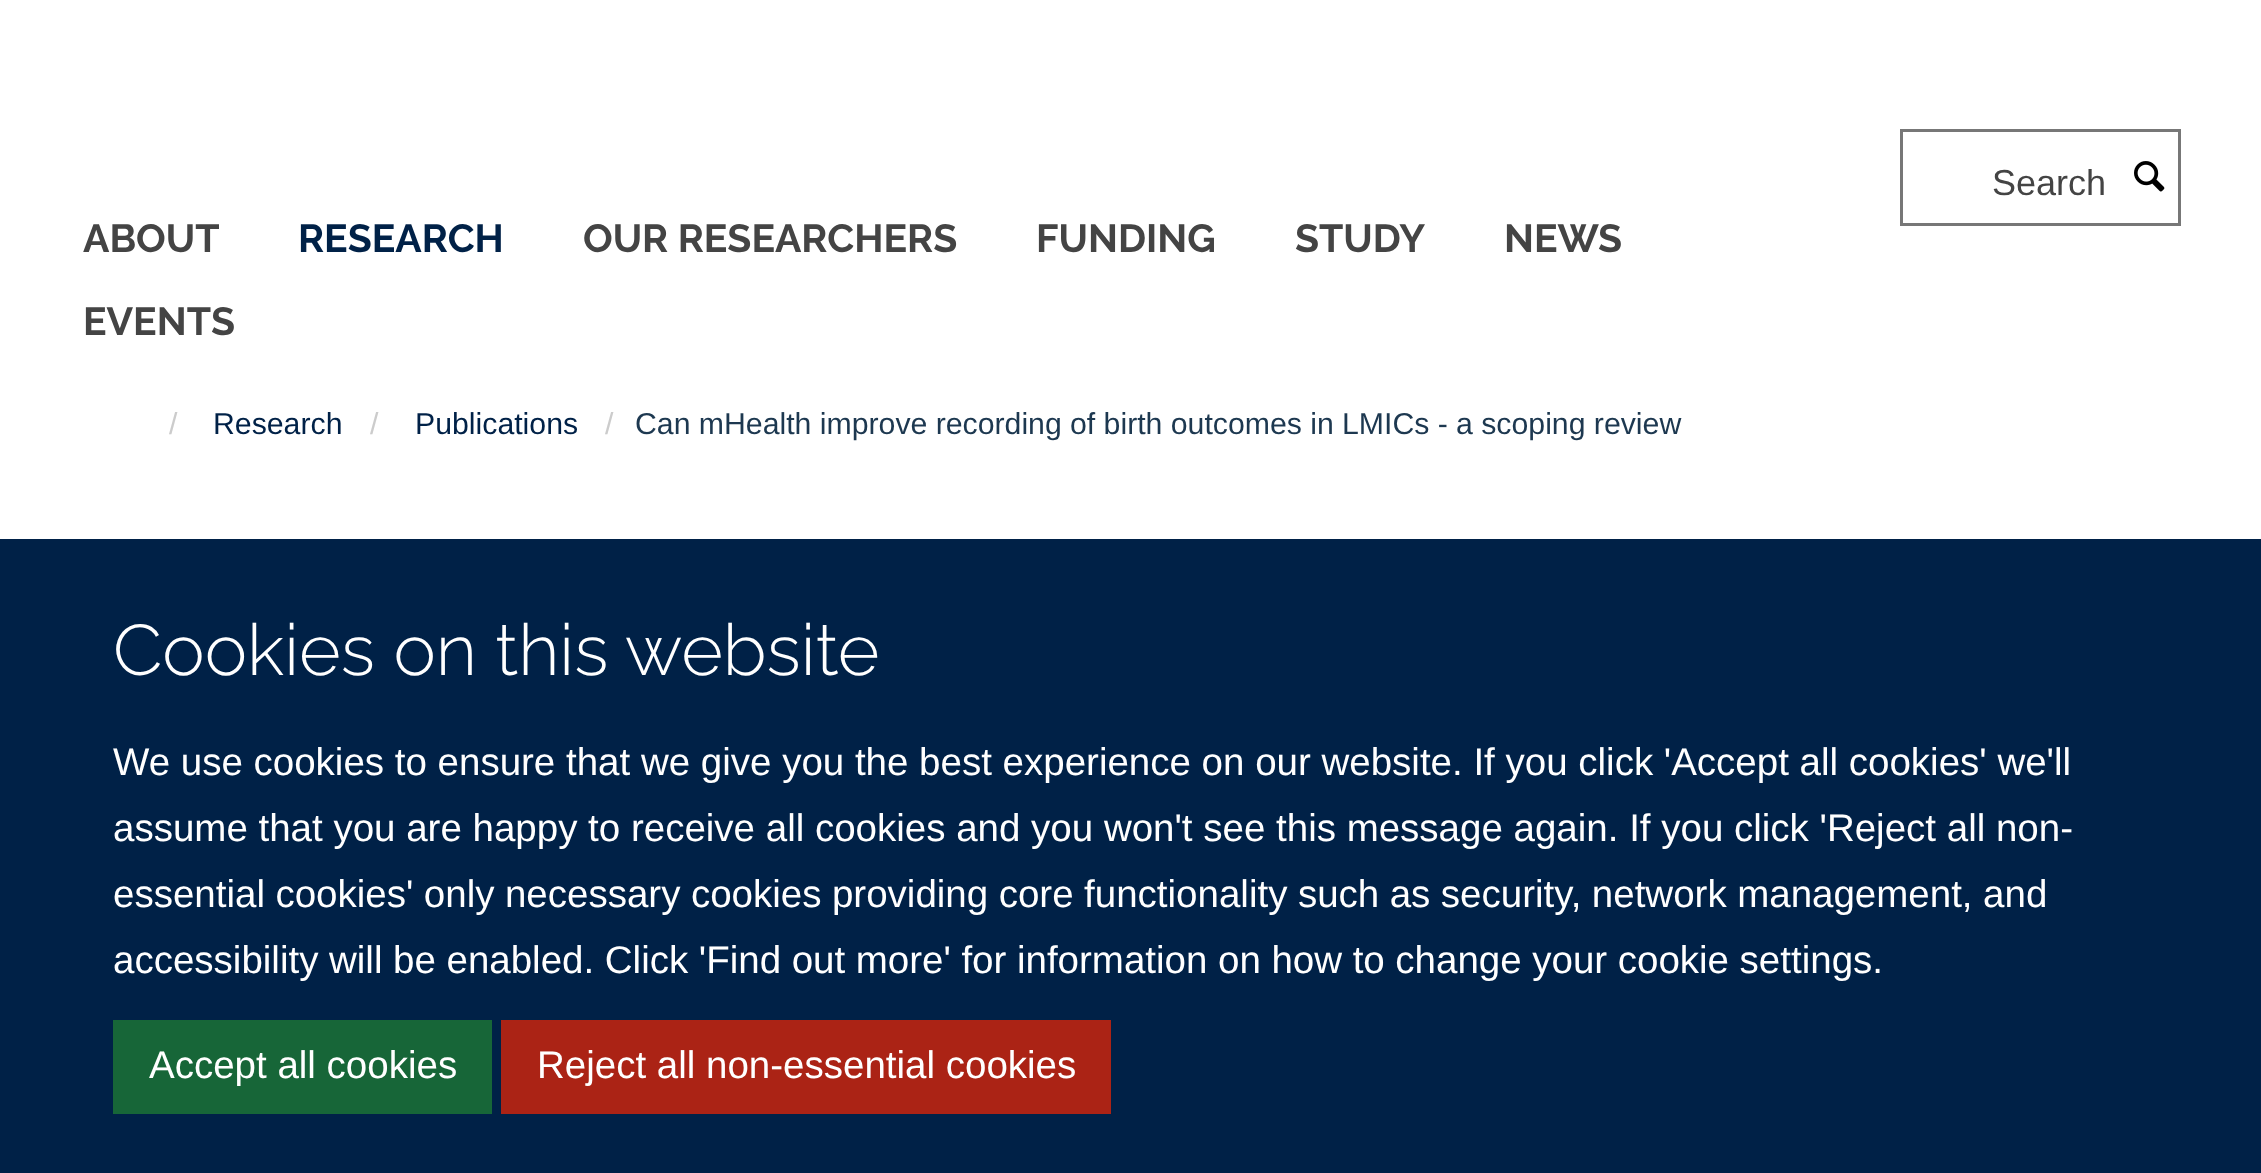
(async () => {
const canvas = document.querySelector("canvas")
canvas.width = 2261
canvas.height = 1173
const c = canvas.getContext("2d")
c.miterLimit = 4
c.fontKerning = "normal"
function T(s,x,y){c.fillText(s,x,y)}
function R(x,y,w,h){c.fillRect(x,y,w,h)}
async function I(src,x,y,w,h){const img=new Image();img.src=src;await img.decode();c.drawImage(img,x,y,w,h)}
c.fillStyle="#fff"
R(0,0,2261,1173)
c.strokeStyle="#777"
c.lineWidth=3
c.strokeRect(1901.5,130.5,278,94)
c.font="36px Liberation Sans"
c.fillStyle="#444"
T("Search",1992,195)
await I("1.png",2134,161,31,31)
c.font="bold 39.25px Raleway"
T("ABOUT",83,252)
c.fillStyle="#002147"
T("RESEARCH",298,252)
c.fillStyle="#444"
T("OUR RESEARCHERS",583,252)
T("FUNDING",1036,252)
T("STUDY",1295,252)
T("NEWS",1504,252)
T("EVENTS",83,335)
c.font="30.25px Liberation Sans"
c.fillStyle="#ccc"
T("/",169,434)
c.fillStyle="#002147"
T("Research",213,434)
c.fillStyle="#ccc"
T("/",370,434)
c.fillStyle="#002147"
T("Publications",415,434)
c.fillStyle="#ccc"
T("/",605,434)
c.wordSpacing="-0.1px"
c.fillStyle="#1d3850"
T("Can mHealth improve recording of birth outcomes in LMICs - a scoping review",635,434)
c.fillStyle="#002147"
R(0,539,2261,634)
c.wordSpacing="0px"
c.font="300 71.5px Raleway"
c.fillStyle="#fff"
T("Cookies on this website",113,675)
c.font="38.5px Liberation Sans"
T("We use cookies to ensure that we give you the best experience on our website. If you click 'Accept all cookies' we'll",113,775)
T("assume that you are happy to receive all cookies and you won't see this message again. If you click 'Reject all non-",113,841)
c.wordSpacing="-0.2px"
T("essential cookies' only necessary cookies providing core functionality such as security, network management, and",113,907)
c.wordSpacing="-0.1px"
T("accessibility will be enabled. Click 'Find out more' for information on how to change your cookie settings.",113,973)
c.fillStyle="#176638"
R(113,1020,379,94)
c.wordSpacing="0px"
c.fillStyle="#fff"
T("Accept all cookies",149,1078)
c.fillStyle="#ab2315"
R(501,1020,610,94)
c.fillStyle="#fff"
T("Reject all non-essential cookies",537,1078)
})()
